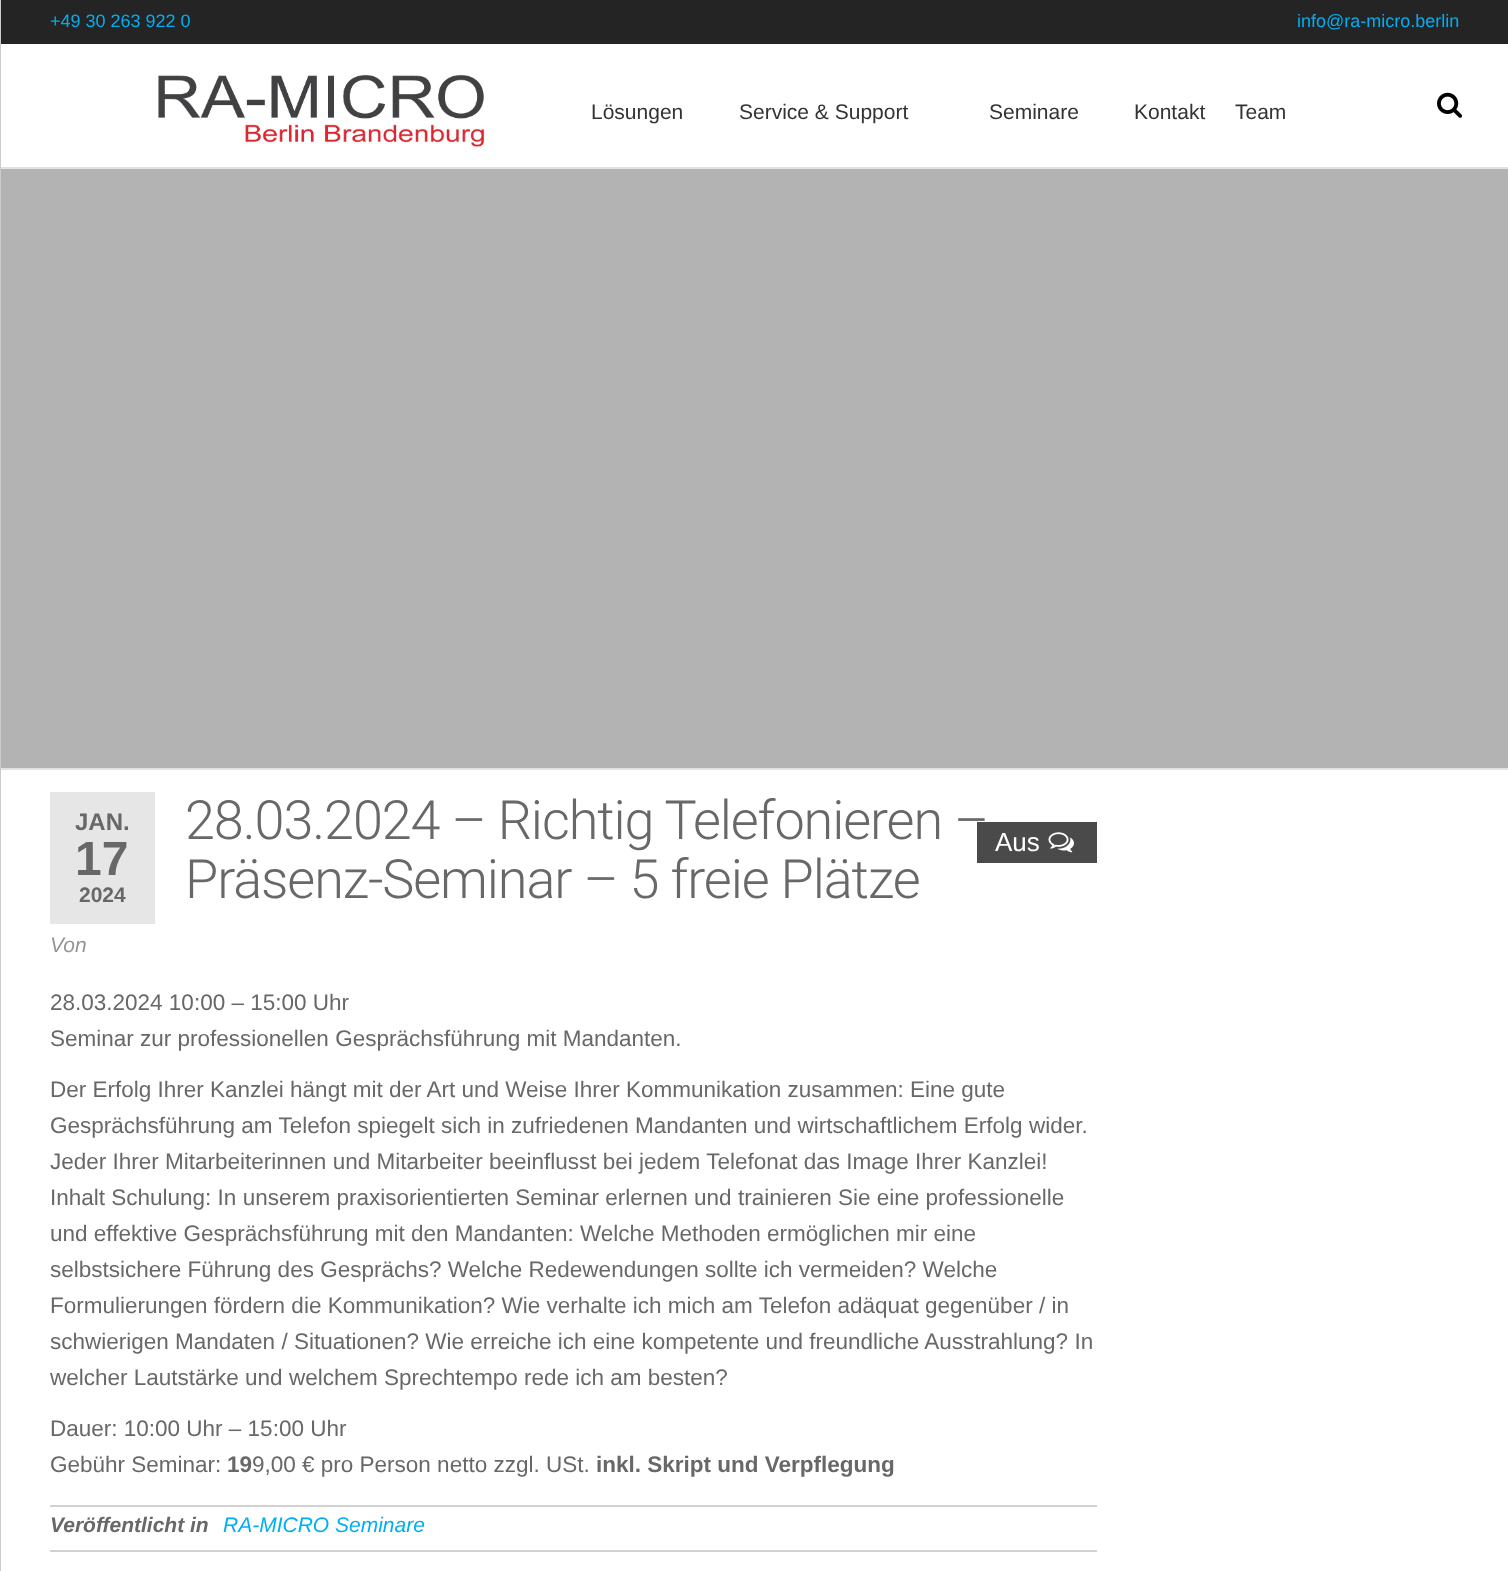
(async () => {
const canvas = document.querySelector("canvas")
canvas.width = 1508
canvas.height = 1571
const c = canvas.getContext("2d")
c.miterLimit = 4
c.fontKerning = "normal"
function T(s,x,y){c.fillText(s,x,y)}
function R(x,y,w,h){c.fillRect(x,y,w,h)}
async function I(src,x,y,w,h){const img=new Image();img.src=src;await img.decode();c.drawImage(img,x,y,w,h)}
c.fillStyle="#fff"
R(0,0,1508,1571)
c.fillStyle="#e2e2e2"
R(0,167,1508,2)
R(0,768,1508,2)
c.fillStyle="#cbcbcb"
R(0,0,1,1571)
c.fillStyle="#242424"
R(1,0,1507,44)
c.font="18px Liberation Sans"
c.fillStyle="#00aff2"
T("+49 30 263 922 0",50,27)
T("info@ra-micro.berlin",1297,27)
await I("1.png",158,75,327,73)
c.font="21px Liberation Sans"
c.fillStyle="#333"
T("Lösungen",591,119)
T("Service & Support",739,119)
T("Seminare",989,119)
T("Kontakt",1134,119)
T("Team",1235,119)
await I("2.png",1437,92,25,26)
c.fillStyle="#b3b3b3"
R(1,169,1507,599)
c.fillStyle="#4a4a4a"
R(977,822,120,41)
c.letterSpacing="-1.1px"
c.font="300 54px Roboto"
c.fillStyle="#686868"
T("28.03.2024 – Richtig Telefonieren –",185,839)
T("Präsenz-Seminar – 5 freie Plätze",185,898)
c.fillStyle="#e6e6e6"
R(50,792,105,132)
c.letterSpacing="0px"
c.font="bold 24px Liberation Sans"
c.fillStyle="#686868"
T("JAN.",75,830)
c.font="bold 48px Liberation Sans"
T("17",75,875)
c.font="bold 21px Liberation Sans"
T("2024",79,902)
c.font="26px Liberation Sans"
c.fillStyle="#fff"
T("Aus",995,851)
await I("3.png",1048,832,26,21)
c.font="italic 21px Liberation Sans"
c.fillStyle="#959595"
T("Von",50,952)
c.font="22.5px Liberation Sans"
c.fillStyle="#686868"
T("28.03.2024 10:00 – 15:00 Uhr",50,1010)
T("Seminar zur professionellen Gesprächsführung mit Mandanten.",50,1046)
T("Der Erfolg Ihrer Kanzlei hängt mit der Art und Weise Ihrer Kommunikation zusammen: Eine gute",50,1097)
T("Gesprächsführung am Telefon spiegelt sich in zufriedenen Mandanten und wirtschaftlichem Erfolg wider.",50,1133)
T("Jeder Ihrer Mitarbeiterinnen und Mitarbeiter beeinflusst bei jedem Telefonat das Image Ihrer Kanzlei!",50,1169)
T("Inhalt Schulung: In unserem praxisorientierten Seminar erlernen und trainieren Sie eine professionelle",50,1205)
T("und effektive Gesprächsführung mit den Mandanten: Welche Methoden ermöglichen mir eine",50,1241)
T("selbstsichere Führung des Gesprächs? Welche Redewendungen sollte ich vermeiden? Welche",50,1277)
T("Formulierungen fördern die Kommunikation? Wie verhalte ich mich am Telefon adäquat gegenüber / in",50,1313)
T("schwierigen Mandaten / Situationen? Wie erreiche ich eine kompetente und freundliche Ausstrahlung? In",50,1349)
T("welcher Lautstärke und welchem Sprechtempo rede ich am besten?",50,1385)
T("Dauer: 10:00 Uhr – 15:00 Uhr",50,1436)
T("Gebühr Seminar:",50,1472)
c.font="bold 22.5px Liberation Sans"
T("19",227,1472)
c.font="22.5px Liberation Sans"
T("9,00 € pro Person netto zzgl. USt.",252,1472)
c.font="bold 22.5px Liberation Sans"
T("inkl. Skript und Verpflegung",596,1472)
c.fillStyle="#d1d1d1"
R(50,1505,1047,2)
R(50,1550,1047,2)
c.font="italic bold 21px Liberation Sans"
c.fillStyle="#686868"
T("Veröffentlicht in",50,1532)
c.font="italic 21px Liberation Sans"
c.fillStyle="#00aff2"
T("RA-MICRO Seminare",223,1532)
})()
